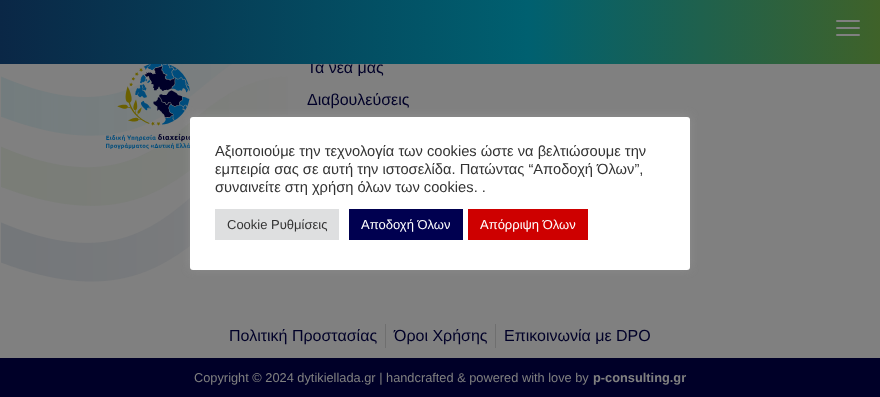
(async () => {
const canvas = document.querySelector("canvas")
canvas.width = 880
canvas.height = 397
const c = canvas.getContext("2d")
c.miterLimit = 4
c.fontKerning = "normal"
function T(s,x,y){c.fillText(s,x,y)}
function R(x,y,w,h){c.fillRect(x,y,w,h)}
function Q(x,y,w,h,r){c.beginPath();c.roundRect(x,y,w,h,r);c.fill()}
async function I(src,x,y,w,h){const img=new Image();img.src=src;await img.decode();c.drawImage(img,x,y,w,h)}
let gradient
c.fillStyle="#808080"
R(0,0,880,397)
c.font="16px Liberation Sans"
c.fillStyle="#000028"
T("Τα νέα μας",307,73)
gradient = c.createLinearGradient(0,32,880,32)
gradient.addColorStop(0,"#0a2746")
gradient.addColorStop(.6,"#006070")
gradient.addColorStop(1,"#3f6229")
c.fillStyle = gradient
R(0,0,880,64)
c.fillStyle="#808080"
Q(836,20,24,2,1)
Q(836,27,24,2,1)
Q(836,34,24,2,1)
await I("1.png",1,64,287,218)
await I("2.png",106,64,84,85)
c.fillStyle="#000028"
T("Διαβουλεύσεις",307,105)
T("Πολιτική Προστασίας",229,341)
c.fillStyle="#6f6f6f"
R(385,324,1,24)
c.fillStyle="#000028"
T("Όροι Χρήσης",394,341)
c.fillStyle="#6f6f6f"
R(495,324,1,24)
c.fillStyle="#000028"
T("Επικοινωνία με DPO",504,341)
R(0,358,880,39)
c.font="12.8px Liberation Sans"
c.fillStyle="#808080"
T("Copyright © 2024 dytikiellada.gr | handcrafted & powered with love by",194,382)
c.font="bold 12.8px Liberation Sans"
T("p-consulting.gr",593,382)
c.fillStyle="#acabab4d"
c.filter="blur(5px)"
c.beginPath()
c.roundRect(190,116,500,153,3)
c.fill()
c.filter="none"
c.fillStyle="#fff"
Q(190,117,500,153,3)
c.font="14.7px Liberation Sans"
c.fillStyle="#333"
T("Αξιοποιούμε την τεχνολογία των cookies ώστε να βελτιώσουμε την",215,156)
T("εμπειρία σας σε αυτή την ιστοσελίδα. Πατώντας “Αποδοχή Όλων”,",215,174)
T("συναινείτε στη χρήση όλων των cookies. .",215,192)
c.fillStyle="#dedfe0"
R(215,209,124,31)
c.font="13px Liberation Sans"
c.fillStyle="#333"
T("Cookie Ρυθμίσεις",227,229)
c.fillStyle="#000050"
R(349,209,114,31)
c.fillStyle="#fff"
T("Αποδοχή Όλων",361,229)
c.fillStyle="#ce0000"
R(468,209,120,31)
c.fillStyle="#fff"
T("Απόρριψη Όλων",480,229)
})()
